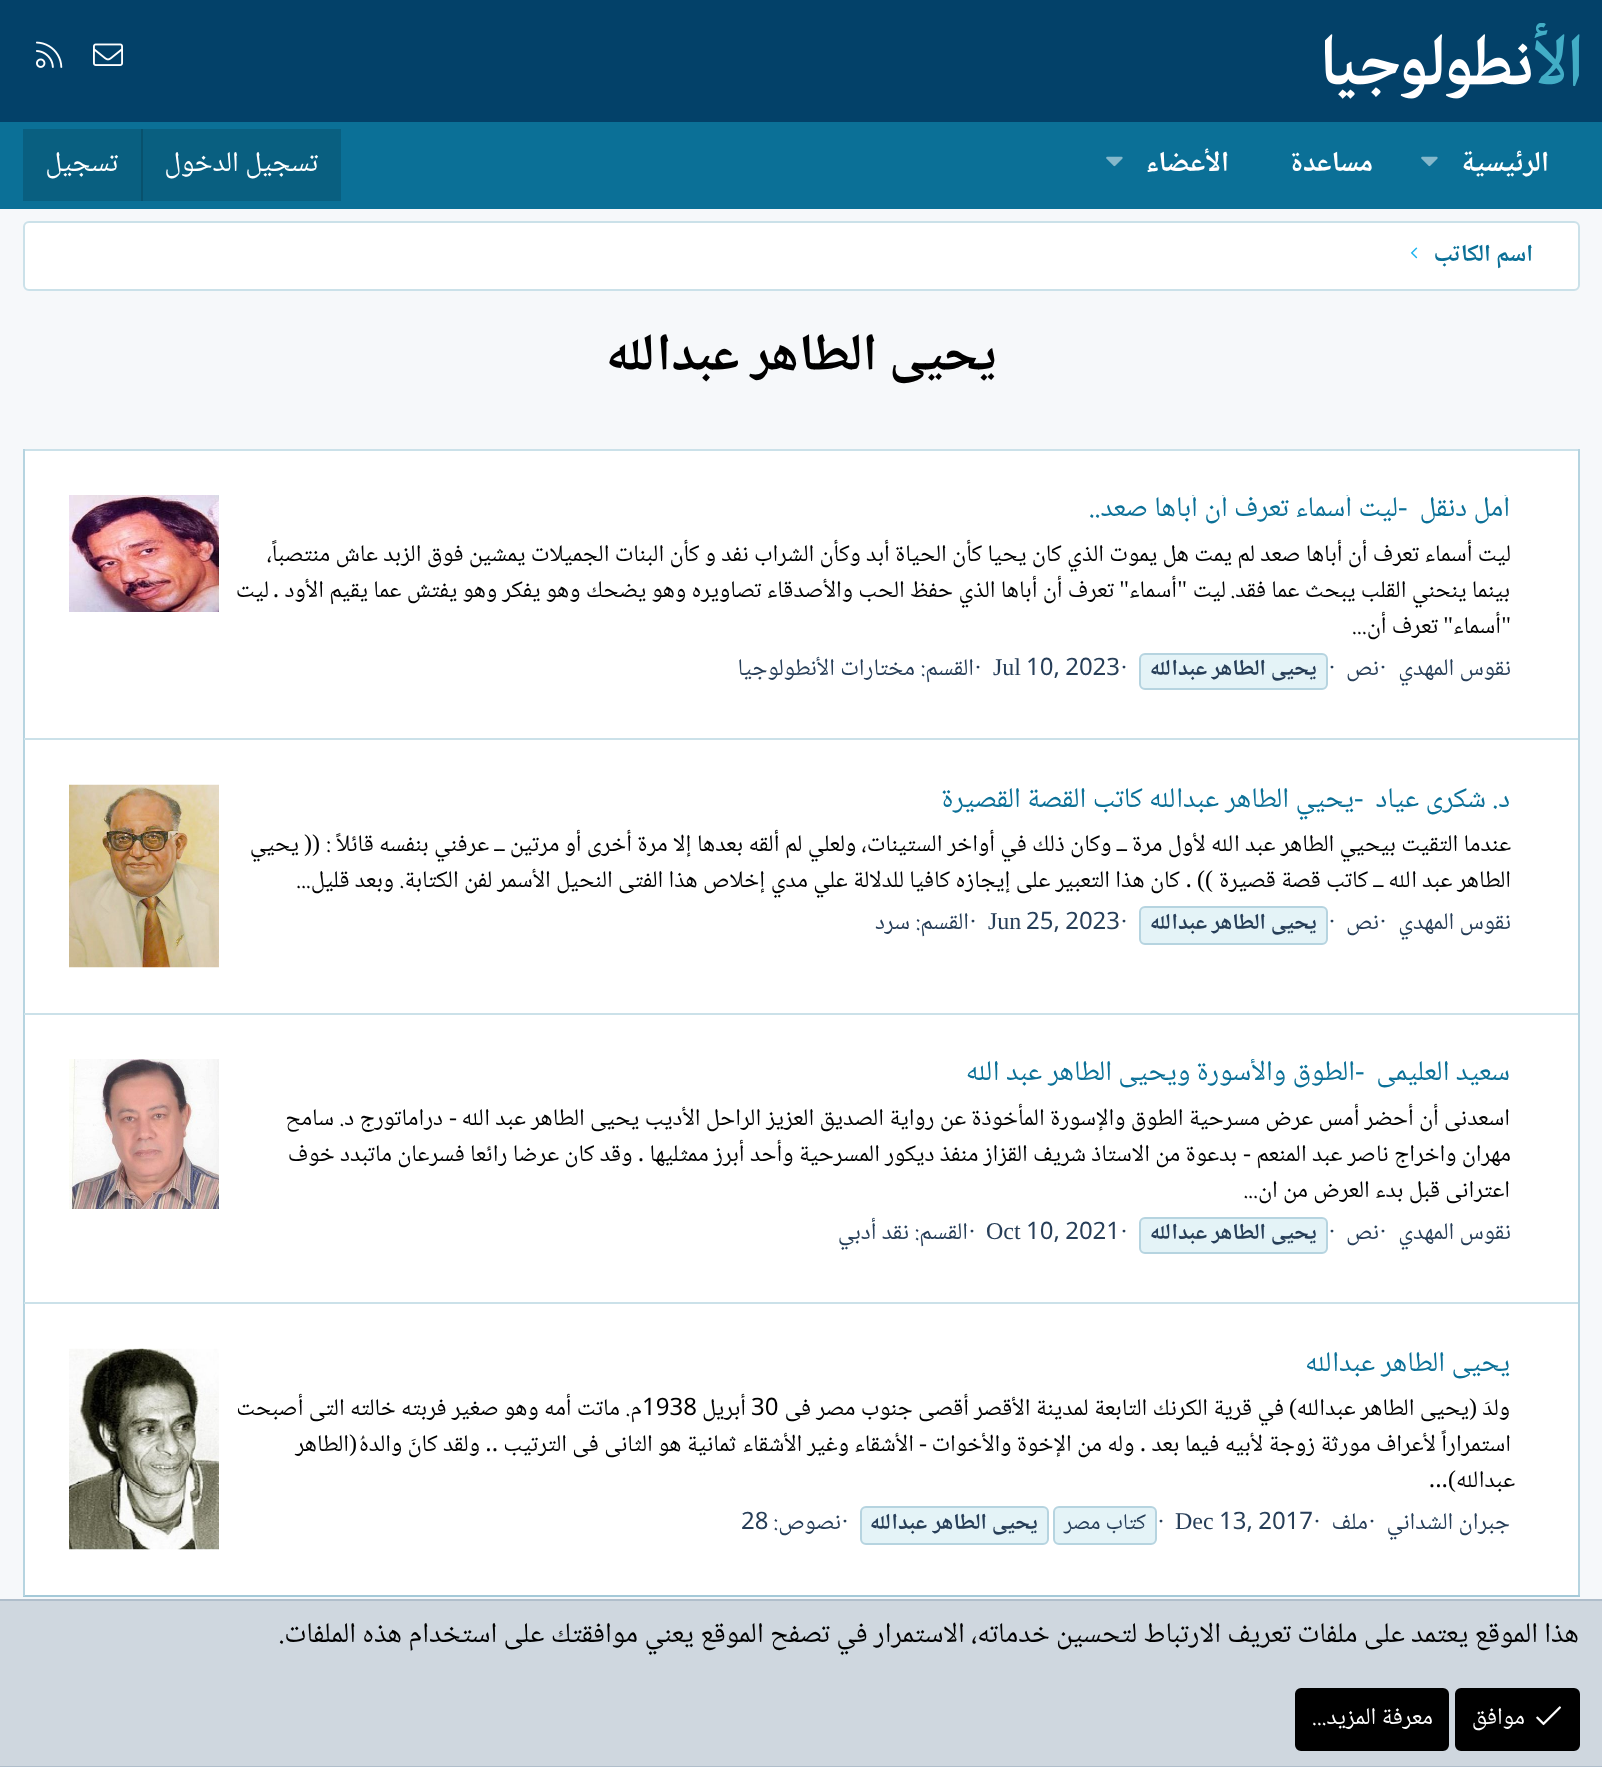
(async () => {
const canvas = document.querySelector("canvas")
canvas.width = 1602
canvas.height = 1767
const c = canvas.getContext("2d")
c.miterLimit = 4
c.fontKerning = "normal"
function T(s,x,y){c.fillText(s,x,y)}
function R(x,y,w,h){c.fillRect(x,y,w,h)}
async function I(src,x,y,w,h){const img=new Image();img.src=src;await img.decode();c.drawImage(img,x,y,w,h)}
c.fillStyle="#f6f8fa"
R(0,0,1602,1767)
c.fillStyle="#034169"
R(0,0,1602,122)
await I("1.png",1325,23,255,76)
await I("2.png",93,43,30,23)
await I("3.png",36,41,27,27)
c.fillStyle="#0b7097"
R(0,122,1602,87)
c.direction="rtl"
c.font="bold 28.5px Noto Naskh Arabic"
c.fillStyle="#fff"
T("الرئيسية",1549,171)
await I("4.png",1421,156,17,11)
T("مساعدة",1373,171)
T("الأعضاء",1229,171)
await I("4.png",1106,156,17,11)
c.fillStyle="#095f80"
R(23,129,318,72)
c.font="28.5px Noto Naskh Arabic"
c.fillStyle="#fff"
T("تسجيل الدخول",318,171)
c.fillStyle="#08516d"
R(141,129,2,72)
c.fillStyle="#fff"
T("تسجيل",118,171)
c.beginPath()
c.roundRect(24,222,1555,68,5)
c.fill()
c.strokeStyle="#cbe1e9"
c.lineWidth=2
c.stroke()
c.font="bold 24px Noto Naskh Arabic"
c.fillStyle="#0b7097"
T("اسم الكاتب",1533,261)
await I("5.png",1410,247,8,12)
c.font="bold 52.5px Noto Naskh Arabic"
c.fillStyle="#000"
T("يحيى الطاهر عبدالله",997,370)
c.fillStyle="#fff"
R(25,451,1553,1144)
c.fillStyle="#cbe1e9"
R(23,449,1557,2)
c.fillStyle="#b6d4e0"
R(1578,449,2,1147)
c.fillStyle="#a4c9d8"
R(23,1595,1557,2)
c.fillStyle="#b6d4e0"
R(23,449,2,1147)
c.save()
c.beginPath()
c.rect(69,495,1464,198)
c.clip()
c.font="28.5px Noto Naskh Arabic"
c.fillStyle="#0b7097"
T("أمل دنقل",1510,516)
c.restore()
c.direction="ltr"
c.font="28.5px Liberation Serif"
c.fillStyle="#0b7097"
T("-",1398,516)
c.save()
c.beginPath()
c.rect(69,495,1464,198)
c.clip()
c.direction="rtl"
c.font="28.5px Noto Naskh Arabic"
T("ليت أسماء تعرف أن أباها صعد..",1398,516)
c.restore()
c.direction="rtl"
c.font="24px Noto Naskh Arabic"
c.fillStyle="#000"
T("ليت أسماء تعرف أن أباها صعد لم يمت هل يموت الذي كان يحيا كأن الحياة أبد وكأن الشراب نفد و كأن البنات الجميلات يمشين فوق الزبد عاش منتصباً،",1511,561)
T("بينما ينحني القلب يبحث عما فقد.",1510,597)
T("ليت",1226,597)
c.font="24px Liberation Serif"
T("\"",1187,597)
c.font="24px Noto Naskh Arabic"
T("أسماء",1177,597)
c.font="24px Liberation Serif"
T("\"",1129,597)
c.font="24px Noto Naskh Arabic"
T("تعرف أن أباها الذي حفظ الحب والأصدقاء تصاويره وهو يضحك وهو يفكر وهو يفتش عما يقيم الأود .",1114,597)
T("ليت",269,597)
c.font="24px Liberation Serif"
T("\"",1511,633)
c.font="24px Noto Naskh Arabic"
T("أسماء",1501,633)
c.font="24px Liberation Serif"
T("\"",1453,633)
c.font="24px Noto Naskh Arabic"
T("تعرف أن...",1438,633)
c.fillStyle="#273e58"
T("نقوس المهدي",1511,675)
c.direction="ltr"
c.font="24px Liberation Serif"
T("·",1379,675)
c.direction="rtl"
c.font="24px Noto Naskh Arabic"
T("نص",1379,675)
c.direction="ltr"
c.font="24px Liberation Serif"
T("·",1328,675)
c.fillStyle="#e4f3f7"
c.beginPath()
c.roundRect(1140,654,187,35,5)
c.fill()
c.strokeStyle="#b6d4e0"
c.stroke()
c.direction="rtl"
c.font="bold 22.5px Noto Naskh Arabic"
c.fillStyle="#273e58"
T("يحيى",1317,675)
T("الطاهر",1266,675)
T("عبدالله",1207,675)
c.direction="ltr"
c.font="24px Liberation Serif"
T("·",1120,675)
c.font="24px Noto Naskh Arabic"
T("10, 2023",1026,675)
c.font="24px Liberation Serif"
T("Jul",993,675)
T("·",974,675)
c.direction="rtl"
c.font="24px Noto Naskh Arabic"
T("القسم:",974,675)
T("مختارات الأنطولوجيا",915,675)
await I("6.png",69,495,150,117)
c.fillStyle="#cbe1e9"
R(24,738,1554,2)
c.font="28.5px Noto Naskh Arabic"
c.fillStyle="#0b7097"
T("د. شکری عیاد",1510,807)
c.direction="ltr"
c.font="28.5px Liberation Serif"
T("-",1354,807)
c.direction="rtl"
c.font="28.5px Noto Naskh Arabic"
T("يحيي الطاهر عبدالله كاتب القصة القصيرة",1354,807)
c.font="24px Noto Naskh Arabic"
c.fillStyle="#000"
T("عندما التقيت بيحيي الطاهر عبد الله لأول مرة ــ وكان ذلك في أواخر الستينات، ولعلي لم ألقه بعدها إلا مرة أخرى أو مرتين ــ عرفني بنفسه قائلاً",1511,851)
T(":",331,851)
c.font="24px Liberation Serif"
T("((",320,851)
c.font="24px Noto Naskh Arabic"
T("يحيي",299,851)
c.wordSpacing="-0.25px"
T("الطاهر عبد الله ــ كاتب قصة قصيرة",1511,887)
c.wordSpacing="0px"
c.font="24px Liberation Serif"
T("))",1213,887)
c.font="24px Noto Naskh Arabic"
T(".",1192,887)
T("كان هذا التعبير على إيجازه كافيا للدلالة علي مدي إخلاص هذا الفتى النحيل الأسمر لفن الكتابة. وبعد قليل...",1180,887)
c.fillStyle="#273e58"
T("نقوس المهدي",1511,929)
c.direction="ltr"
c.font="24px Liberation Serif"
T("·",1379,929)
c.direction="rtl"
c.font="24px Noto Naskh Arabic"
T("نص",1379,929)
c.direction="ltr"
c.font="24px Liberation Serif"
T("·",1328,929)
c.fillStyle="#e4f3f7"
c.beginPath()
c.roundRect(1140,907,187,37,5)
c.fill()
c.stroke()
c.direction="rtl"
c.font="bold 22.5px Noto Naskh Arabic"
c.fillStyle="#273e58"
T("يحيى",1317,929)
T("الطاهر",1266,929)
T("عبدالله",1207,929)
c.direction="ltr"
c.font="24px Liberation Serif"
T("·",1120,929)
c.font="24px Noto Naskh Arabic"
T("25, 2023",1026,929)
c.font="24px Liberation Serif"
T("Jun",988,929)
T("·",969,929)
c.direction="rtl"
c.font="24px Noto Naskh Arabic"
T("القسم:",969,929)
T("سرد",910,929)
await I("7.png",69,784,150,184)
c.fillStyle="#cbe1e9"
R(24,1013,1554,2)
c.font="28.5px Noto Naskh Arabic"
c.fillStyle="#0b7097"
T("سعيد العليمى",1510,1080)
c.direction="ltr"
c.font="28.5px Liberation Serif"
T("-",1355,1080)
c.save()
c.beginPath()
c.rect(69,1059,1464,198)
c.clip()
c.direction="rtl"
c.font="28.5px Noto Naskh Arabic"
T("الطوق والأسورة ويحيى الطاهر عبد الله",1355,1080)
c.restore()
c.direction="rtl"
c.font="24px Noto Naskh Arabic"
c.fillStyle="#000"
T("اسعدنى أن أحضر أمس عرض مسرحية الطوق والإسورة المأخوذة عن رواية الصديق العزيز الراحل الأديب يحيى الطاهر عبد الله",1510,1125)
c.font="24px Liberation Serif"
T("-",457,1125)
c.font="24px Noto Naskh Arabic"
T("دراماتورج د. سامح",443,1125)
T("مهران واخراج ناصر عبد المنعم",1511,1161)
c.font="24px Liberation Serif"
T("-",1251,1161)
c.font="24px Noto Naskh Arabic"
T("بدعوة من الاستاذ شريف القزاز منفذ ديكور المسرحية وأحد أبرز ممثليها . وقد كان عرضا رائعا فسرعان ماتبدد خوف",1237,1161)
T("اعترانى قبل بدء العرض من ان...",1510,1197)
c.fillStyle="#273e58"
T("نقوس المهدي",1511,1239)
c.direction="ltr"
c.font="24px Liberation Serif"
T("·",1379,1239)
c.direction="rtl"
c.font="24px Noto Naskh Arabic"
T("نص",1379,1239)
c.direction="ltr"
c.font="24px Liberation Serif"
T("·",1328,1239)
c.fillStyle="#e4f3f7"
c.beginPath()
c.roundRect(1140,1218,187,35,5)
c.fill()
c.stroke()
c.direction="rtl"
c.font="bold 22.5px Noto Naskh Arabic"
c.fillStyle="#273e58"
T("يحيى",1317,1239)
T("الطاهر",1266,1239)
T("عبدالله",1207,1239)
c.direction="ltr"
c.font="24px Liberation Serif"
T("·",1120,1239)
c.font="24px Noto Naskh Arabic"
T("10, 2021",1026,1239)
c.font="24px Liberation Serif"
T("Oct",986,1239)
T("·",968,1239)
c.direction="rtl"
c.font="24px Noto Naskh Arabic"
T("القسم:",968,1239)
T("نقد أدبي",909,1239)
await I("8.png",69,1059,150,150)
c.fillStyle="#cbe1e9"
R(24,1302,1554,2)
c.font="28.5px Noto Naskh Arabic"
c.fillStyle="#0b7097"
T("يحيى الطاهر عبدالله",1510,1371)
c.font="24px Noto Naskh Arabic"
c.fillStyle="#000"
T("ولدَ",1510,1415)
c.font="24px Liberation Serif"
T("(",1477,1415)
c.font="24px Noto Naskh Arabic"
T("يحيى الطاهر عبدالله",1469,1415)
c.font="24px Liberation Serif"
T(")",1297,1415)
c.font="24px Noto Naskh Arabic"
T("في قرية الكرنك التابعة لمدينة الأقصر أقصى جنوب مصر فى",1284,1415)
c.direction="ltr"
T("30",751,1415)
c.direction="rtl"
T("أبريل",746,1415)
c.direction="ltr"
T("1938",642,1415)
c.direction="rtl"
T("م. ماتت أمه وهو صغير فربته خالته التى أصبحت",642,1415)
T("استمراراً لأعراف مورثة زوجة لأبيه فيما بعد . وله من الإخوة والأخوات",1511,1451)
c.font="24px Liberation Serif"
T("-",927,1451)
c.font="24px Noto Naskh Arabic"
T("الأشقاء وغير الأشقاء ثمانية هو الثانى فى الترتيب .. ولقد كانَ والدهُ",914,1451)
c.font="24px Liberation Serif"
T("(",357,1451)
c.font="24px Noto Naskh Arabic"
T("الطاهر",349,1451)
T("عبدالله",1515,1487)
c.font="24px Liberation Serif"
T(")",1456,1487)
c.font="24px Noto Naskh Arabic"
T("...",1448,1487)
c.fillStyle="#273e58"
T("جبران الشداني",1510,1529)
c.direction="ltr"
c.font="24px Liberation Serif"
T("·",1368,1529)
c.direction="rtl"
c.font="24px Noto Naskh Arabic"
T("ملف",1368,1529)
c.direction="ltr"
c.font="24px Liberation Serif"
T("·",1313,1529)
c.font="24px Noto Naskh Arabic"
T("13, 2017",1219,1529)
c.font="24px Liberation Serif"
T("Dec",1175,1529)
T("·",1157,1529)
c.fillStyle="#e4f3f7"
c.beginPath()
c.roundRect(1054,1507,102,37,5)
c.fill()
c.stroke()
c.direction="rtl"
c.font="22.5px Noto Naskh Arabic"
c.fillStyle="#273e58"
T("كتاب مصر",1146,1529)
c.fillStyle="#e4f3f7"
c.beginPath()
c.roundRect(861,1507,187,37,5)
c.fill()
c.stroke()
c.font="bold 22.5px Noto Naskh Arabic"
c.fillStyle="#273e58"
T("يحيى",1038,1529)
T("الطاهر",987,1529)
T("عبدالله",927,1529)
c.direction="ltr"
c.font="24px Liberation Serif"
T("·",841,1529)
c.direction="rtl"
c.font="24px Noto Naskh Arabic"
T("نصوص:",841,1529)
c.direction="ltr"
T("28",741,1529)
await I("9.png",69,1348,150,202)
c.fillStyle="#cfd7df"
R(0,1601,1602,165)
c.fillStyle="#b0becb"
R(0,1599,1602,2)
R(0,1766,1602,1)
c.direction="rtl"
c.font="28.5px Noto Naskh Arabic"
c.fillStyle="#000"
T("هذا الموقع يعتمد على ملفات تعريف الارتباط لتحسين خدماته، الاستمرار في تصفح الموقع يعني موافقتك على استخدام هذه الملفات.",1579,1642)
c.beginPath()
c.roundRect(1456,1689,123,61,5)
c.fill()
c.strokeStyle="#000"
c.stroke()
await I("10.png",1536,1706,25,20)
c.font="24px Noto Naskh Arabic"
c.fillStyle="#fff"
T("موافق",1525,1724)
c.fillStyle="#000"
c.beginPath()
c.roundRect(1296,1689,152,61,5)
c.fill()
c.stroke()
c.fillStyle="#fff"
T("معرفة المزيد...",1433,1724)
})()
